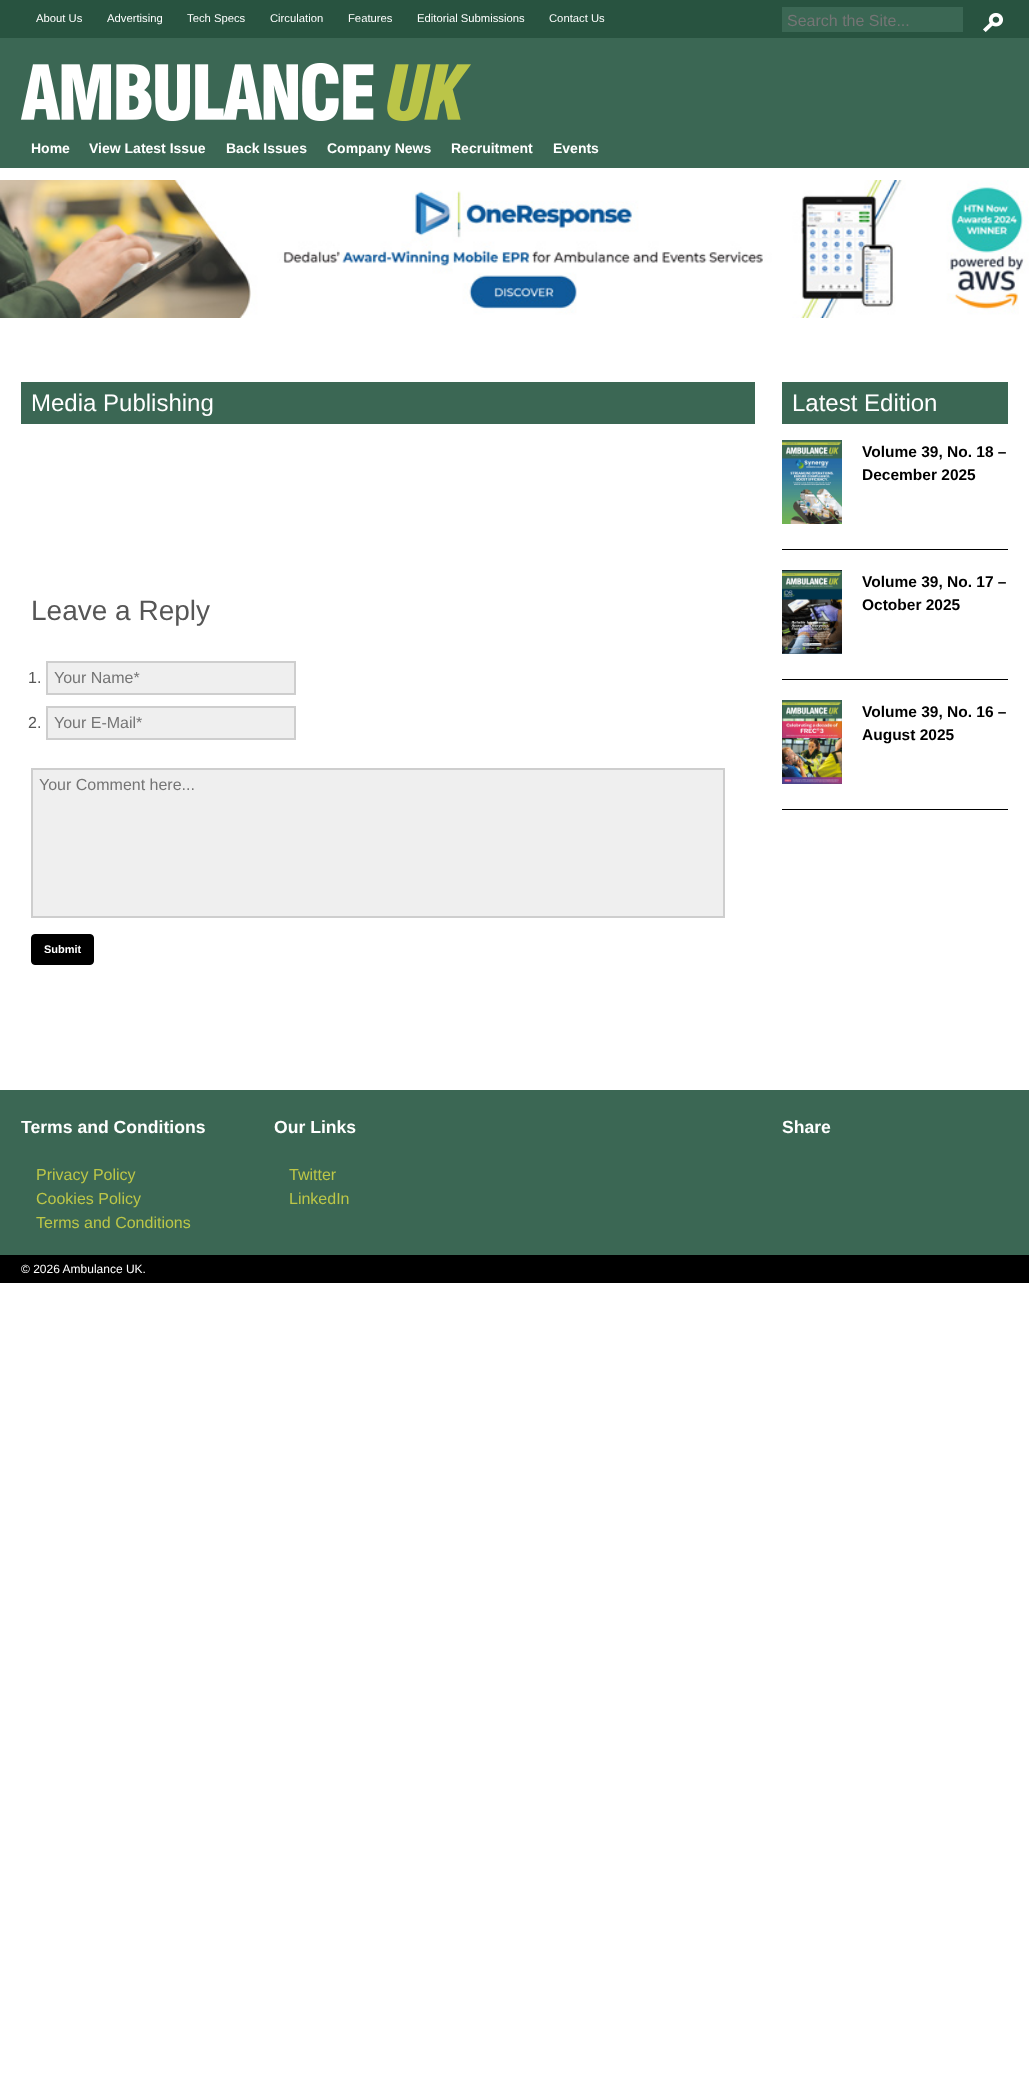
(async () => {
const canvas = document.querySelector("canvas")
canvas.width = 1029
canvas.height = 2083
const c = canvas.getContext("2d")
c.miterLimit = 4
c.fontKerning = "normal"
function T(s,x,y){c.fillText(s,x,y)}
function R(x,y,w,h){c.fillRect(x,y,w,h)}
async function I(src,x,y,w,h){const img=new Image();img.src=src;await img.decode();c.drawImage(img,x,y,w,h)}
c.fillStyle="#fff"
R(0,0,1029,2083)
c.fillStyle="#3b6754"
R(0,38,1029,130)
c.fillStyle="#285340"
R(0,0,1029,38)
c.font="11.25px Liberation Sans"
c.fillStyle="#fff"
T("About Us",36,22)
T("Advertising",107,22)
T("Tech Specs",187,22)
T("Circulation",270,22)
T("Features",348,22)
T("Editorial Submissions",417,22)
T("Contact Us",549,22)
c.fillStyle="#3b6754"
R(782,7,181,25)
c.font="16px Liberation Sans"
c.fillStyle="#757575"
T("Search the Site...",787,26)
await I("1.png",983,13,20,19)
await I("2.png",21,63,450,58)
c.font="bold 14px Liberation Sans"
c.fillStyle="#fff"
T("Home",31,153)
T("View Latest Issue",89,153)
T("Back Issues",226,153)
T("Company News",327,153)
T("Recruitment",451,153)
T("Events",553,153)
await I("3.png",0,180,1029,138)
c.fillStyle="#3b6754"
R(21,382,734,42)
c.font="24px Liberation Sans"
c.fillStyle="#fff"
T("Media Publishing",31,411)
c.font="28px Liberation Sans"
c.fillStyle="#565656"
T("Leave a Reply",31,620)
c.font="16px Liberation Sans"
T("1.",28,683)
c.fillStyle="#efefef"
c.beginPath()
c.rect(47,662,248,32)
c.fill()
c.strokeStyle="#cecece"
c.lineWidth=2
c.stroke()
c.fillStyle="#757575"
T("Your Name*",54,683)
c.fillStyle="#565656"
T("2.",28,728)
c.fillStyle="#efefef"
c.beginPath()
c.rect(47,707,248,32)
c.fill()
c.stroke()
c.fillStyle="#757575"
T("Your E-Mail*",54,728)
c.fillStyle="#efefef"
c.beginPath()
c.rect(32,769,692,148)
c.fill()
c.stroke()
c.fillStyle="#757575"
T("Your Comment here...",39,790)
c.fillStyle="#000"
c.beginPath()
c.roundRect(31.5,934.5,62,30,3.5)
c.fill()
c.strokeStyle="#000"
c.lineWidth=1
c.stroke()
c.font="bold 11px Liberation Sans"
c.fillStyle="#fff"
T("Submit",44,953)
c.fillStyle="#3b6754"
R(782,382,226,42)
c.font="24px Liberation Sans"
c.fillStyle="#fff"
T("Latest Edition",792,411)
c.fillStyle="#000"
R(782,549,226,1)
await I("4.png",782,440,60,84)
c.font="bold 15.5px Liberation Sans"
T("Volume 39, No. 18 –",862,457)
T("December 2025",862,480)
R(782,679,226,1)
await I("5.png",782,570,60,84)
T("Volume 39, No. 17 –",862,587)
T("October 2025",862,610)
R(782,809,226,1)
await I("6.png",782,700,60,84)
T("Volume 39, No. 16 –",862,717)
T("August 2025",862,740)
c.fillStyle="#3b6754"
R(0,1090,1029,165)
c.font="bold 17.6px Liberation Sans"
c.fillStyle="#fff"
T("Terms and Conditions",21,1133)
c.font="16px Liberation Sans"
c.fillStyle="#bcc648"
T("Privacy Policy",36,1180)
T("Cookies Policy",36,1204)
T("Terms and Conditions",36,1228)
c.font="bold 17.6px Liberation Sans"
c.fillStyle="#fff"
T("Our Links",274,1133)
c.font="16px Liberation Sans"
c.fillStyle="#bcc648"
T("Twitter",289,1180)
T("LinkedIn",289,1204)
c.font="bold 17.6px Liberation Sans"
c.fillStyle="#fff"
T("Share",782,1133)
c.fillStyle="#000"
R(0,1255,1029,28)
c.font="12px Liberation Sans"
c.fillStyle="#fff"
T("© 2026 Ambulance UK.",21,1273)
})()
